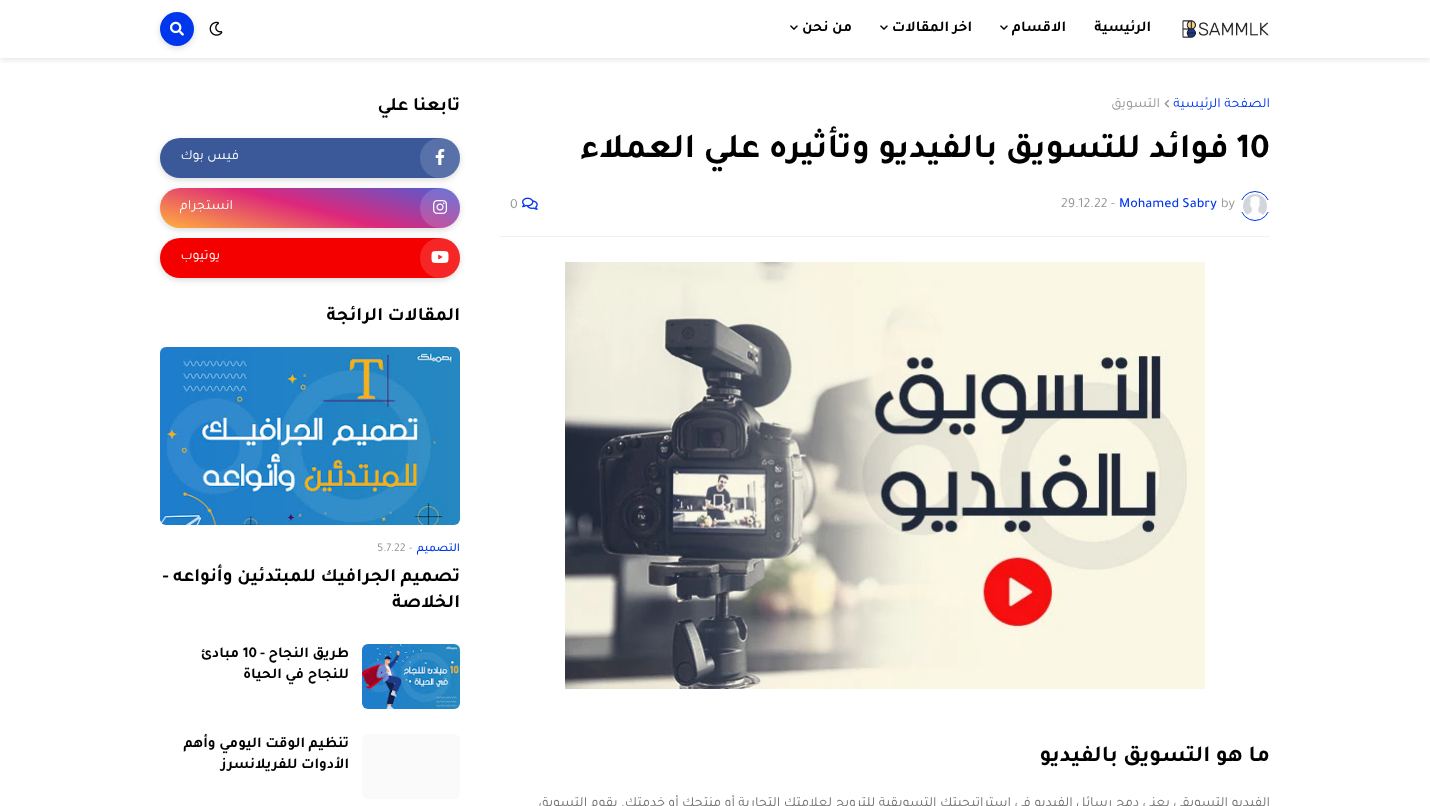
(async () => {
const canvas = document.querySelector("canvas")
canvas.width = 1430
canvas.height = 806
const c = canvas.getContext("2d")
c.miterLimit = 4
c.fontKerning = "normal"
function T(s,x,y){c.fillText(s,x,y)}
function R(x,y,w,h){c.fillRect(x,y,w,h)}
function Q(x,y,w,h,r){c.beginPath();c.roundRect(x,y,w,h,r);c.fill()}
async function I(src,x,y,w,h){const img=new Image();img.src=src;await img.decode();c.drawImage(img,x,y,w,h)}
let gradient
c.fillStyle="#fff"
R(0,0,1430,806)
c.save()
c.beginPath()
c.rect(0,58,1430,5)
c.clip()
c.fillStyle="#0000001a"
c.filter="blur(3px)"
c.beginPath()
c.rect(0,2,1430,58)
c.fill()
c.filter="none"
c.restore()
await I("1.png",1182,20,87,18)
c.direction="rtl"
c.font="bold 15px Tajawal"
c.fillStyle="#000"
T("الرئيسية",1151,31)
T("الاقسام",1066,31)
await I("2.png",1000,25,8,5)
T("اخر المقالات",972,31)
await I("2.png",880,25,8,5)
T("من نحن",852,31)
await I("2.png",790,25,8,5)
await I("3.png",209,21,14,15)
c.fillStyle="#00000026"
c.filter="blur(3px)"
c.beginPath()
c.roundRect(160,14,34,34,17)
c.fill()
c.filter="none"
c.fillStyle="#0037ed"
c.beginPath()
c.arc(177,29,17,0,7)
c.fill()
await I("4.png",170,21,14,15)
c.fillStyle="#f0f0f0"
R(500,236,770,1)
c.font="14px Tajawal"
c.fillStyle="#0037ed"
T("الصفحة الرئيسية",1270,107)
await I("5.png",1164,99,6,9)
c.fillStyle="#949494"
T("التسويق",1160,107)
c.direction="ltr"
c.font="bold 35px Tajawal"
c.fillStyle="#000"
T("10",1237,157)
c.direction="rtl"
T("فوائد للتسويق بالفيديو وتأثيره علي العملاء",1229,157)
c.beginPath()
c.arc(1255,206,14.5,0,7)
c.strokeStyle="#0037ed"
c.stroke()
c.fillStyle="#fff"
R(1240,200,30,12)
await I("6.png",1243,194,24,21)
c.direction="ltr"
c.font="14px Tajawal"
c.fillStyle="#949494"
T("by",1221,207)
c.font="500 14px Tajawal"
c.fillStyle="#0037ed"
T("Mohamed Sabry",1119,207)
c.font="14px Tajawal"
c.fillStyle="#949494"
T("-",1111,207)
T("29.12.22",1061,207)
await I("7.png",522,197,16,13)
T("0",510,208)
await I("8.png",565,262,640,427)
c.direction="rtl"
c.font="bold 23px Tajawal"
c.fillStyle="#000"
T("ما هو التسويق بالفيديو",1270,761)
c.font="14px Tajawal"
c.fillStyle="#737373"
T("الفيديو التسويقي يعني دمج رسائل الفيديو في إستراتيجيتك التسويقية للترويج لعلامتك التجارية أو منتجك أو خدمتك. يقوم التسويق",1270,806)
c.font="bold 19px Tajawal"
c.fillStyle="#000"
T("تابعنا علي",460,110)
c.fillStyle="#00000026"
c.filter="blur(3px)"
c.beginPath()
c.roundRect(160,140,300,40,20)
c.fill()
c.filter="none"
c.fillStyle="#3b5999"
Q(160,138,300,40,20)
c.fillStyle="#ffffff26"
c.beginPath()
c.arc(440,158,20,0,7)
c.fill()
await I("9.png",435,149,10,16)
c.font="14px Tajawal"
c.fillStyle="#fff"
T("فيس بوك",239,159)
c.fillStyle="#00000026"
c.filter="blur(3px)"
c.beginPath()
c.roundRect(160,190,300,40,20)
c.fill()
c.filter="none"
gradient = c.createLinearGradient(295,264,325,152)
gradient.addColorStop(0,"#ffb13d")
gradient.addColorStop(.5,"#dd277b")
gradient.addColorStop(1,"#4d5ed4")
c.fillStyle = gradient
Q(160,188,300,40,20)
c.fillStyle="#ffffff26"
c.beginPath()
c.arc(440,208,20,0,7)
c.fill()
await I("10.png",433,200,15,14)
c.fillStyle="#fff"
T("انستجرام",233,209)
c.fillStyle="#00000026"
c.filter="blur(3px)"
c.beginPath()
c.roundRect(160,240,300,40,20)
c.fill()
c.filter="none"
c.fillStyle="#f50000"
Q(160,238,300,40,20)
c.fillStyle="#ffffff26"
c.beginPath()
c.arc(440,258,20,0,7)
c.fill()
await I("11.png",431,251,18,12)
c.fillStyle="#fff"
T("يوتيوب",220,259)
c.font="bold 19px Tajawal"
c.fillStyle="#000"
T("المقالات الرائجة",460,320)
await I("12.png",160,347,300,178)
c.font="500 12px Tajawal"
c.fillStyle="#0037ed"
T("التصميم",460,551)
c.direction="ltr"
c.font="12px Tajawal"
c.fillStyle="#949494"
T("-",409,551)
T("5.7.22",377,551)
c.direction="rtl"
c.font="bold 19px Tajawal"
c.fillStyle="#000"
T("تصميم الجرافيك للمبتدئين وأنواعه -",460,581)
T("الخلاصة",460,607)
await I("13.png",362,644,98,65)
c.font="bold 15px Tajawal"
T("طريق النجاح -",349,657)
c.direction="ltr"
T("10",243,657)
c.direction="rtl"
T("مبادئ",239,657)
T("للنجاح في الحياة",349,678)
c.fillStyle="#fafafa"
Q(362,734,98,65,6)
c.fillStyle="#000"
T("تنظيم الوقت اليومي وأهم",349,747)
T("الأدوات للفريلانسرز",349,768)
})()
